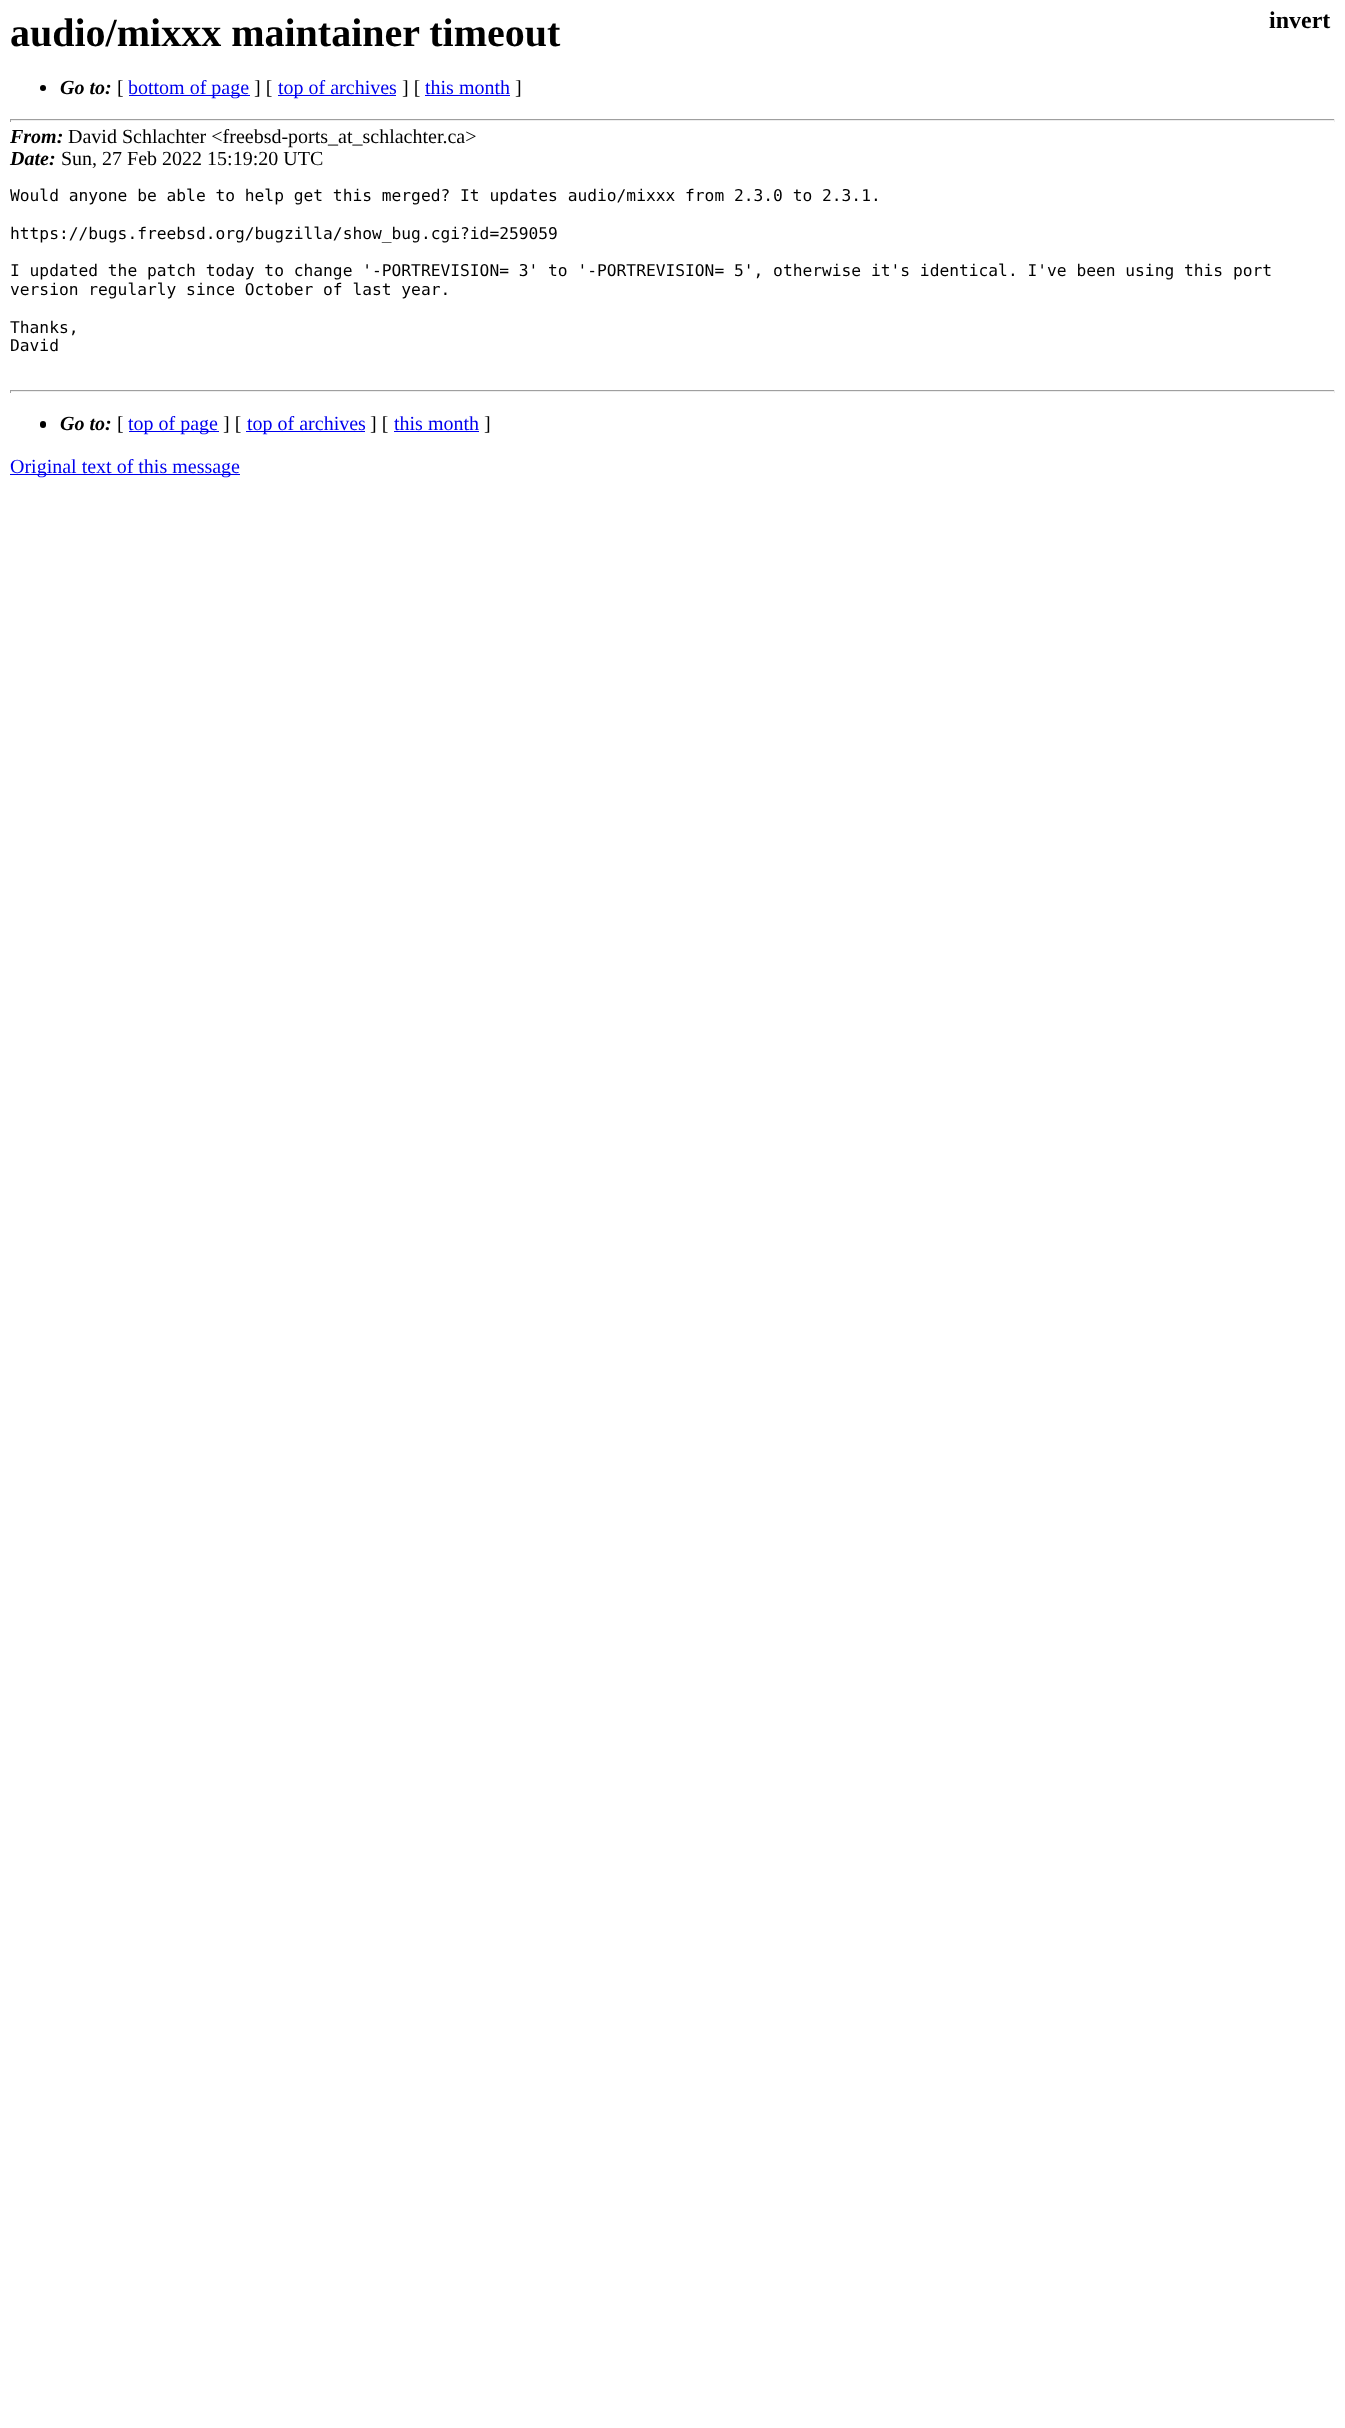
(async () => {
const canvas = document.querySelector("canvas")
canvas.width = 1345
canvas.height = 2428
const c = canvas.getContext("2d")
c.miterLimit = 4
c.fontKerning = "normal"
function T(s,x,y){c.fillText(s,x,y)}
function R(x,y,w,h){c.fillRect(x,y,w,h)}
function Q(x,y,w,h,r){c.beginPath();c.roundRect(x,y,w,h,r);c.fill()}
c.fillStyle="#fff"
R(0,0,1345,2428)
c.font="bold 40px Liberation Serif"
c.fillStyle="#000"
T("audio/mixxx maintainer timeout",10,46)
c.beginPath()
c.arc(43,88,3,0,7)
c.fill()
c.font="italic bold 20px Liberation Serif"
T("Go to:",60,94)
c.font="20px Liberation Serif"
T("[",117,94)
c.fillStyle="#00e"
R(129,95,121,1)
T("bottom of page",128,94)
c.fillStyle="#000"
T("] [",254,94)
c.fillStyle="#00e"
R(278,95,118,1)
T("top of archives",278,94)
c.fillStyle="#000"
T("] [",402,94)
c.fillStyle="#00e"
T("this month",425,94)
R(425,95,85,1)
c.fillStyle="#000"
T("]",515,94)
c.fillStyle="#9f9f9f"
R(10,119,1325,1)
c.fillStyle="#eee"
R(1334,119,1,3)
R(10,120,1325,1)
c.fillStyle="#9f9f9f"
R(10,119,1,3)
c.font="bold 24px Liberation Serif"
c.fillStyle="#000"
T("invert",1269,28)
c.font="italic bold 20px Liberation Serif"
T("From:",10,143)
c.font="20px Liberation Serif"
T("David Schlachter <freebsd-ports_at_schlachter.ca>",68,143)
c.font="italic bold 20px Liberation Serif"
T("Date:",10,165)
c.font="20px Liberation Serif"
T("Sun, 27 Feb 2022 15:19:20 UTC",61,165)
c.font="16.25px DejaVu Sans Mono"
T("Would anyone be able to help get this merged? It updates audio/mixxx from 2.3.0 to 2.3.1.",10,201)
T("https://bugs.freebsd.org/bugzilla/show_bug.cgi?id=259059",10,239)
T("I updated the patch today to change '-PORTREVISION= 3' to '-PORTREVISION= 5', otherwise it's identical. I've been using this port",10,276)
T("version regularly since October of last year.",10,295)
T("Thanks,",10,333)
T("David",10,351)
c.fillStyle="#9f9f9f"
R(10,390,1325,1)
c.fillStyle="#eee"
R(1334,390,1,3)
R(10,391,1325,1)
c.fillStyle="#9f9f9f"
R(10,390,1,3)
c.fillStyle="#000"
Q(40,421,6,7,3)
c.font="italic bold 20px Liberation Serif"
T("Go to:",60,430)
c.font="20px Liberation Serif"
T("[",117,430)
c.fillStyle="#00e"
R(129,431,90,1)
T("top of page",128,430)
c.fillStyle="#000"
T("] [",223,430)
c.fillStyle="#00e"
R(246,431,119,1)
T("top of archives",247,430)
c.fillStyle="#000"
T("] [",370,430)
c.fillStyle="#00e"
T("this month",394,430)
R(394,431,85,1)
c.fillStyle="#000"
T("]",484,430)
c.fillStyle="#00e"
R(10,474,230,1)
T("Original text of this message",10,473)
})()
